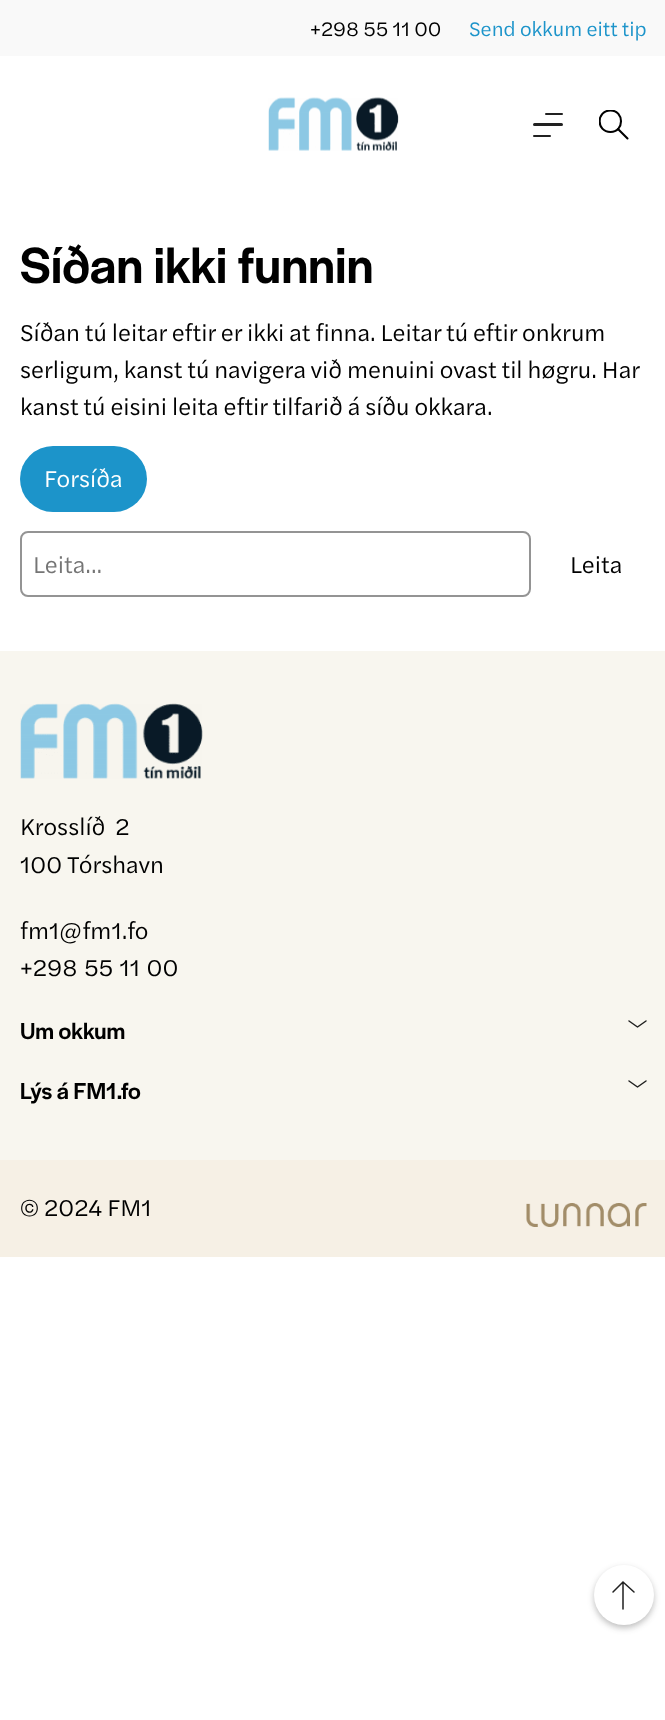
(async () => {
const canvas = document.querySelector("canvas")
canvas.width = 665
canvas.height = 1720
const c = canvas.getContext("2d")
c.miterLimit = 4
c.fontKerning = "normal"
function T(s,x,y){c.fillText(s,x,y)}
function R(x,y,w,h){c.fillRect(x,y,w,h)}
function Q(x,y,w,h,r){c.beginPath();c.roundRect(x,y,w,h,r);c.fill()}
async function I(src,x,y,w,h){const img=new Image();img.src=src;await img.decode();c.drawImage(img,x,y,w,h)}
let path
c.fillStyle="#fff"
R(0,0,665,1720)
c.fillStyle="#f9f9f9"
R(0,0,665,56)
c.font="20.5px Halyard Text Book"
c.fillStyle="#000"
T("+298 55 11 00",310,36)
c.fillStyle="#1c94ca"
T("Send okkum eitt tip",469,36)
await I("1.png",268,97,131,54)
c.fillStyle="#212121"
Q(545,113,18,2,1)
Q(533,123,30,3,1.5)
Q(533,135,18,2,1)
c.save()
c.beginPath()
c.rect(599,110,30,30)
c.clip()
path = new Path2D("M610.5 132c14 0 14-21.5 0-21.5c-14.5 0-14.5 21.5 0 21.5z")
c.strokeStyle="#000"
c.lineWidth=2.1
c.lineCap="round"
c.lineJoin="round"
c.stroke(path)
c.restore()
path = new Path2D("M627.5 138.5l-9.5-9.5")
c.strokeStyle="#000"
c.lineWidth=2.1
c.lineCap="round"
c.lineJoin="round"
c.stroke(path)
c.font="500 52.75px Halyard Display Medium"
c.fillStyle="#000"
T("Síðan ikki funnin",20,283)
c.font="24px Halyard Text Book"
T("Síðan tú leitar eftir er ikki at finna. Leitar tú eftir onkrum",20,341)
T("serligum, kanst tú navigera við menuini ovast til høgru. Har",20,378)
T("kanst tú eisini leita eftir tilfarið á síðu okkara.",20,415)
c.fillStyle="#1c94ca"
Q(20,446,127,66,33)
c.fillStyle="#fff"
T("Forsíða",44,487)
c.beginPath()
c.roundRect(21,532,509,64,7)
c.strokeStyle="#949494"
c.lineWidth=2
c.lineJoin="miter"
c.stroke()
c.fillStyle="#757575"
T("Leita...",33,573)
c.fillStyle="#000"
T("Leita",570,573)
c.fillStyle="#f8f6ef"
R(0,651,665,509)
await I("2.png",20,703,183,76)
c.wordSpacing="5px"
c.fillStyle="#000"
T("Krosslíð 2",20,835)
c.wordSpacing="0px"
T("100 Tórshavn",20,873)
T("fm1@fm1.fo",20,939)
c.wordSpacing="1.5px"
T("+298 55 11 00",20,976)
c.wordSpacing="0px"
c.font="500 24px Halyard Display Medium"
T("Um okkum",20,1039)
path = new Path2D("M629 1021l8.5 6l8.5-6")
c.strokeStyle="#212121"
c.lineWidth=1.5
c.lineJoin="round"
c.stroke(path)
T("Lýs á FM1.fo",20,1099)
path = new Path2D("M629 1081l8.5 6l8.5-6")
c.stroke(path)
c.fillStyle="#f6f0e5"
R(0,1160,665,97)
c.font="24px Halyard Text Book"
c.fillStyle="#000"
T("© 2024 FM1",20,1216)
await I("3.png",526,1203,121,24)
c.fillStyle="#2121214a"
c.filter="blur(3px)"
c.beginPath()
c.roundRect(594,1568,60,60,30)
c.fill()
c.filter="none"
c.fillStyle="#fff"
c.beginPath()
c.arc(624,1595,30,0,7)
c.fill()
path = new Path2D("M623 1609v-27v.5m-10 9.5l10-10l11 10")
c.stroke(path)
})()
